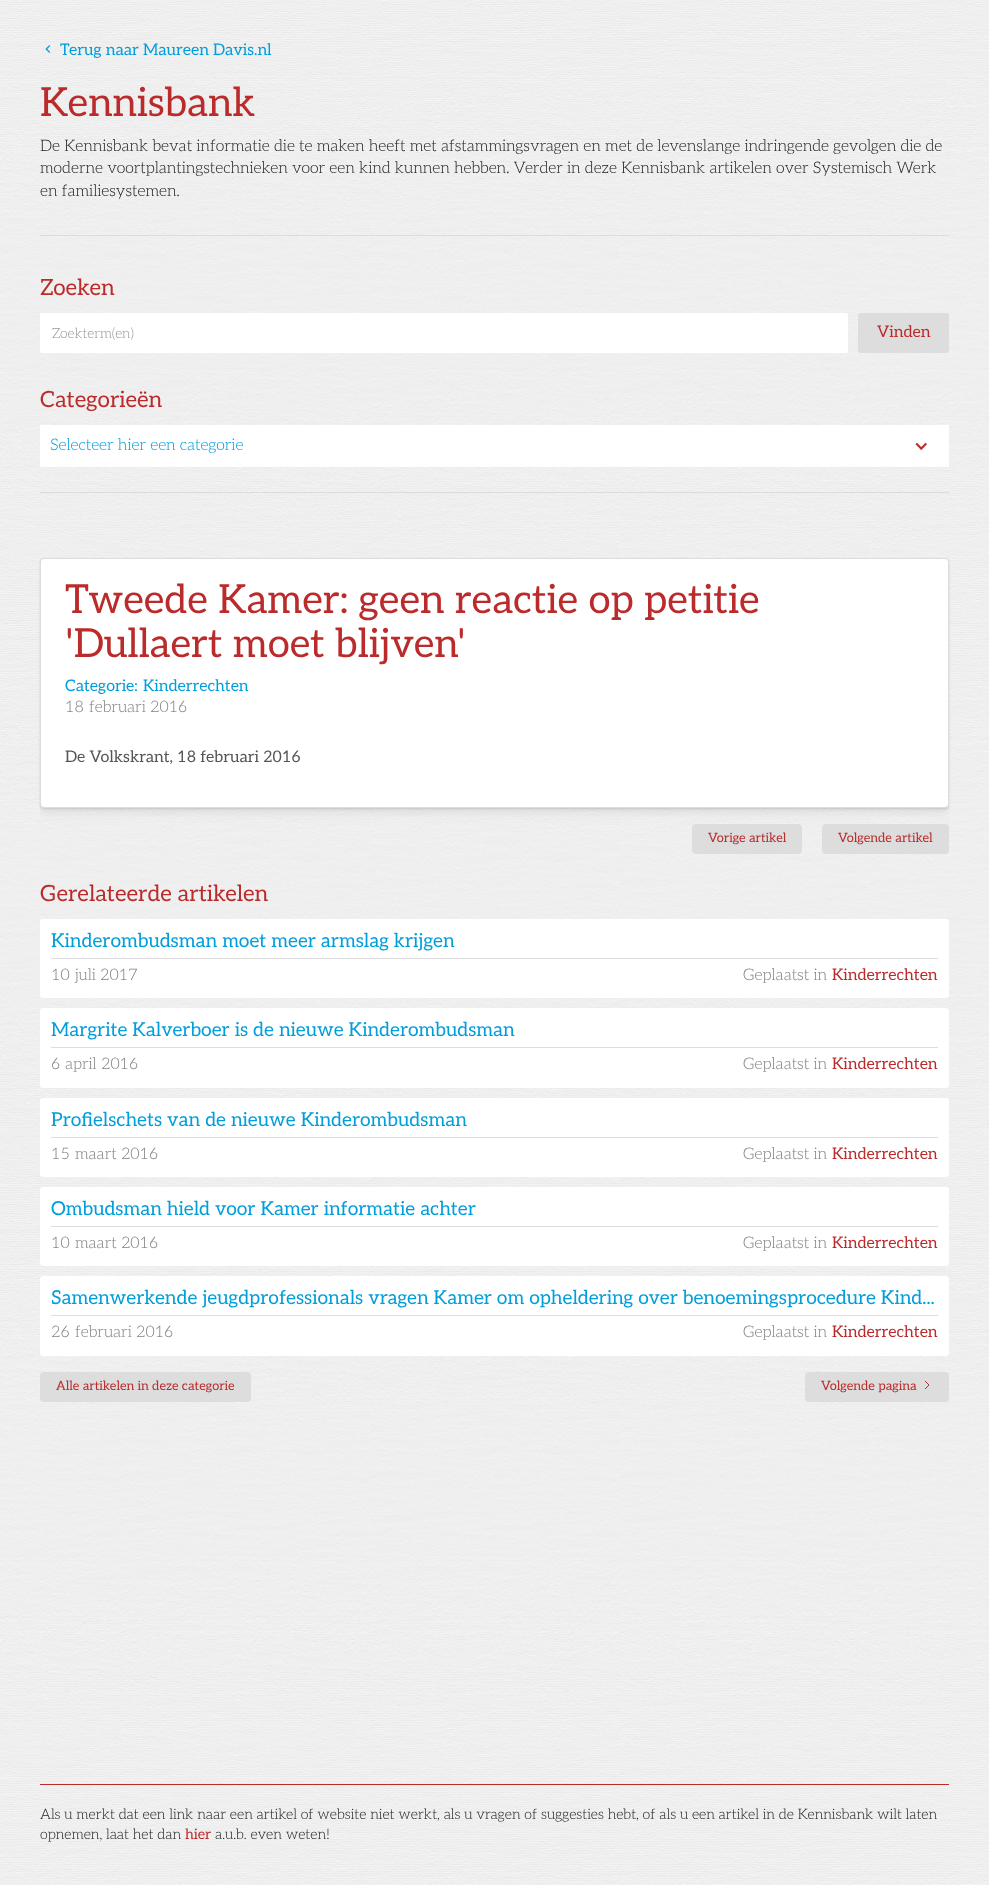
(async () => {
const canvas = document.querySelector("canvas")
canvas.width = 989
canvas.height = 1885
const c = canvas.getContext("2d")
c.miterLimit = 4
c.fontKerning = "normal"
function T(s,x,y){c.fillText(s,x,y)}
function R(x,y,w,h){c.fillRect(x,y,w,h)}
function Q(x,y,w,h,r){c.beginPath();c.roundRect(x,y,w,h,r);c.fill()}
async function I(src,x,y,w,h){const img=new Image();img.src=src;await img.decode();c.drawImage(img,x,y,w,h)}
let path
c.fillStyle="#fff"
R(0,0,989,1885)
await I("1.png",0,0,989,1885)
await I("2.png",45,45,6,8)
c.font="16px Aleo"
c.fillStyle="#009edc"
T("Terug naar Maureen Davis.nl",60,55)
c.font="40px Aleo"
c.fillStyle="#bb2b2b"
T("Kennisbank",40,116)
c.font="300 16px Aleo"
c.fillStyle="#222"
T("De Kennisbank bevat informatie die te maken heeft met afstammingsvragen en met de levenslange indringende gevolgen die de",40,151)
T("moderne voortplantingstechnieken voor een kind kunnen hebben. Verder in deze Kennisbank artikelen over Systemisch Werk",40,173)
T("en familiesystemen.",40,196)
c.fillStyle="#ddd"
R(40,235,909,1)
c.font="22.4px Aleo"
c.fillStyle="#bb2b2b"
T("Zoeken",40,295)
c.fillStyle="#fff"
Q(40,313,808,40,2)
c.font="300 14px Aleo"
c.fillStyle="#999"
T("Zoekterm(en)",52,338)
c.fillStyle="#ddd"
Q(858,313,91,40,2)
c.font="16px Aleo"
c.fillStyle="#bb2b2b"
T("Vinden",877,337)
c.font="22.4px Aleo"
T("Categorieën",40,407)
c.fillStyle="#fff"
R(40,425,909,42)
c.font="300 16px Aleo"
c.fillStyle="#009edc"
T("Selecteer hier een categorie",50,450)
await I("3.png",915,442,12,9)
c.fillStyle="#ddd"
R(40,492,909,1)
c.fillStyle="#0000001f"
c.filter="blur(1px)"
c.beginPath()
c.roundRect(40,559,909,250,4)
c.fill()
c.filter="none"
c.fillStyle="#ddd"
Q(692,824,110,30,4)
Q(822,824,127,30,4)
c.save()
c.beginPath()
c.rect(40,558,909,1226)
c.clip()
c.fillStyle="#00000014"
c.filter="blur(6px)"
c.beginPath()
c.roundRect(40,562,909,250,4)
c.fill()
c.filter="none"
c.restore()
c.fillStyle="#fff"
c.beginPath()
c.roundRect(40.5,558.5,908,249,3.5)
c.fill()
c.strokeStyle="#ddd"
c.stroke()
c.font="40px Aleo"
c.fillStyle="#bb2b2b"
T("Tweede Kamer: geen reactie op petitie",65,613)
T("'Dullaert moet blijven'",65,657)
c.font="16px Aleo"
c.fillStyle="#009edc"
T("Categorie:",65,691)
T("Kinderrechten",143,691)
c.font="300 16px Aleo"
c.fillStyle="#838383"
T("18",65,712)
T("februari 2016",89,712)
c.font="16px Aleo"
c.fillStyle="#555"
T("De Volkskrant, 18 februari 2016",65,762)
c.font="12.75px Aleo"
c.fillStyle="#bb2b2b"
T("Vorige artikel",708,842)
T("Volgende artikel",838,842)
c.font="22.4px Aleo"
T("Gerelateerde artikelen",40,901)
c.fillStyle="#fff"
Q(40,919,909,79,3)
c.font="19.2px Aleo"
c.fillStyle="#009edc"
T("Kinderombudsman moet meer armslag krijgen",51,947)
c.fillStyle="#ddd"
R(51,958,887,1)
c.font="300 16px Aleo"
c.fillStyle="#838383"
T("10",51,980)
T("juli 2017",75,980)
T("Geplaatst in",743,980)
c.font="16px Aleo"
c.fillStyle="#bb2b2b"
T("Kinderrechten",832,980)
c.fillStyle="#fff"
Q(40,1008,909,80,3)
c.font="19.2px Aleo"
c.fillStyle="#009edc"
T("Margrite Kalverboer is de nieuwe Kinderombudsman",51,1036)
c.fillStyle="#ddd"
R(51,1047,887,1)
c.font="300 16px Aleo"
c.fillStyle="#838383"
T("6",51,1069)
T("april 2016",65,1069)
T("Geplaatst in",743,1069)
c.font="16px Aleo"
c.fillStyle="#bb2b2b"
T("Kinderrechten",832,1069)
c.fillStyle="#fff"
Q(40,1098,909,79,3)
c.font="19.2px Aleo"
c.fillStyle="#009edc"
T("Profielschets van de nieuwe Kinderombudsman",51,1126)
c.fillStyle="#ddd"
R(51,1137,887,1)
c.font="300 16px Aleo"
c.fillStyle="#838383"
T("15",51,1159)
T("maart 2016",75,1159)
T("Geplaatst in",743,1159)
c.font="16px Aleo"
c.fillStyle="#bb2b2b"
T("Kinderrechten",832,1159)
c.fillStyle="#fff"
Q(40,1187,909,79,3)
c.font="19.2px Aleo"
c.fillStyle="#009edc"
T("Ombudsman hield voor Kamer informatie achter",51,1215)
c.fillStyle="#ddd"
R(51,1226,887,1)
c.font="300 16px Aleo"
c.fillStyle="#838383"
T("10",51,1248)
T("maart 2016",75,1248)
T("Geplaatst in",743,1248)
c.font="16px Aleo"
c.fillStyle="#bb2b2b"
T("Kinderrechten",832,1248)
c.fillStyle="#fff"
Q(40,1276,909,80,3)
c.font="19.2px Aleo"
c.fillStyle="#009edc"
T("Samenwerkende jeugdprofessionals vragen Kamer om opheldering over benoemingsprocedure Kind...",51,1304)
c.fillStyle="#ddd"
R(51,1315,887,1)
c.font="300 16px Aleo"
c.fillStyle="#838383"
T("26",51,1337)
T("februari 2016",75,1337)
T("Geplaatst in",743,1337)
c.font="16px Aleo"
c.fillStyle="#bb2b2b"
T("Kinderrechten",832,1337)
c.fillStyle="#ddd"
Q(40,1372,211,30,4)
c.font="12.75px Aleo"
c.fillStyle="#bb2b2b"
T("Alle artikelen in deze categorie",56,1390)
c.fillStyle="#ddd"
Q(805,1372,144,30,4)
c.fillStyle="#bb2b2b"
T("Volgende pagina",821,1390)
path = new Path2D("M925 1381l4 4l-4 4")
c.strokeStyle="#bb2b2b"
c.stroke(path)
R(40,1784,909,1)
c.font="300 14.4px Aleo"
c.fillStyle="#222"
T("Als u merkt dat een link naar een artikel of website niet werkt, als u vragen of suggesties hebt, of als u een artikel in de Kennisbank wilt laten",40,1819)
T("opnemen, laat het dan",40,1839)
c.font="14.4px Aleo"
c.fillStyle="#bb2b2b"
T("hier",185,1839)
c.font="300 14.4px Aleo"
c.fillStyle="#222"
T("a.u.b. even weten!",215,1839)
})()
